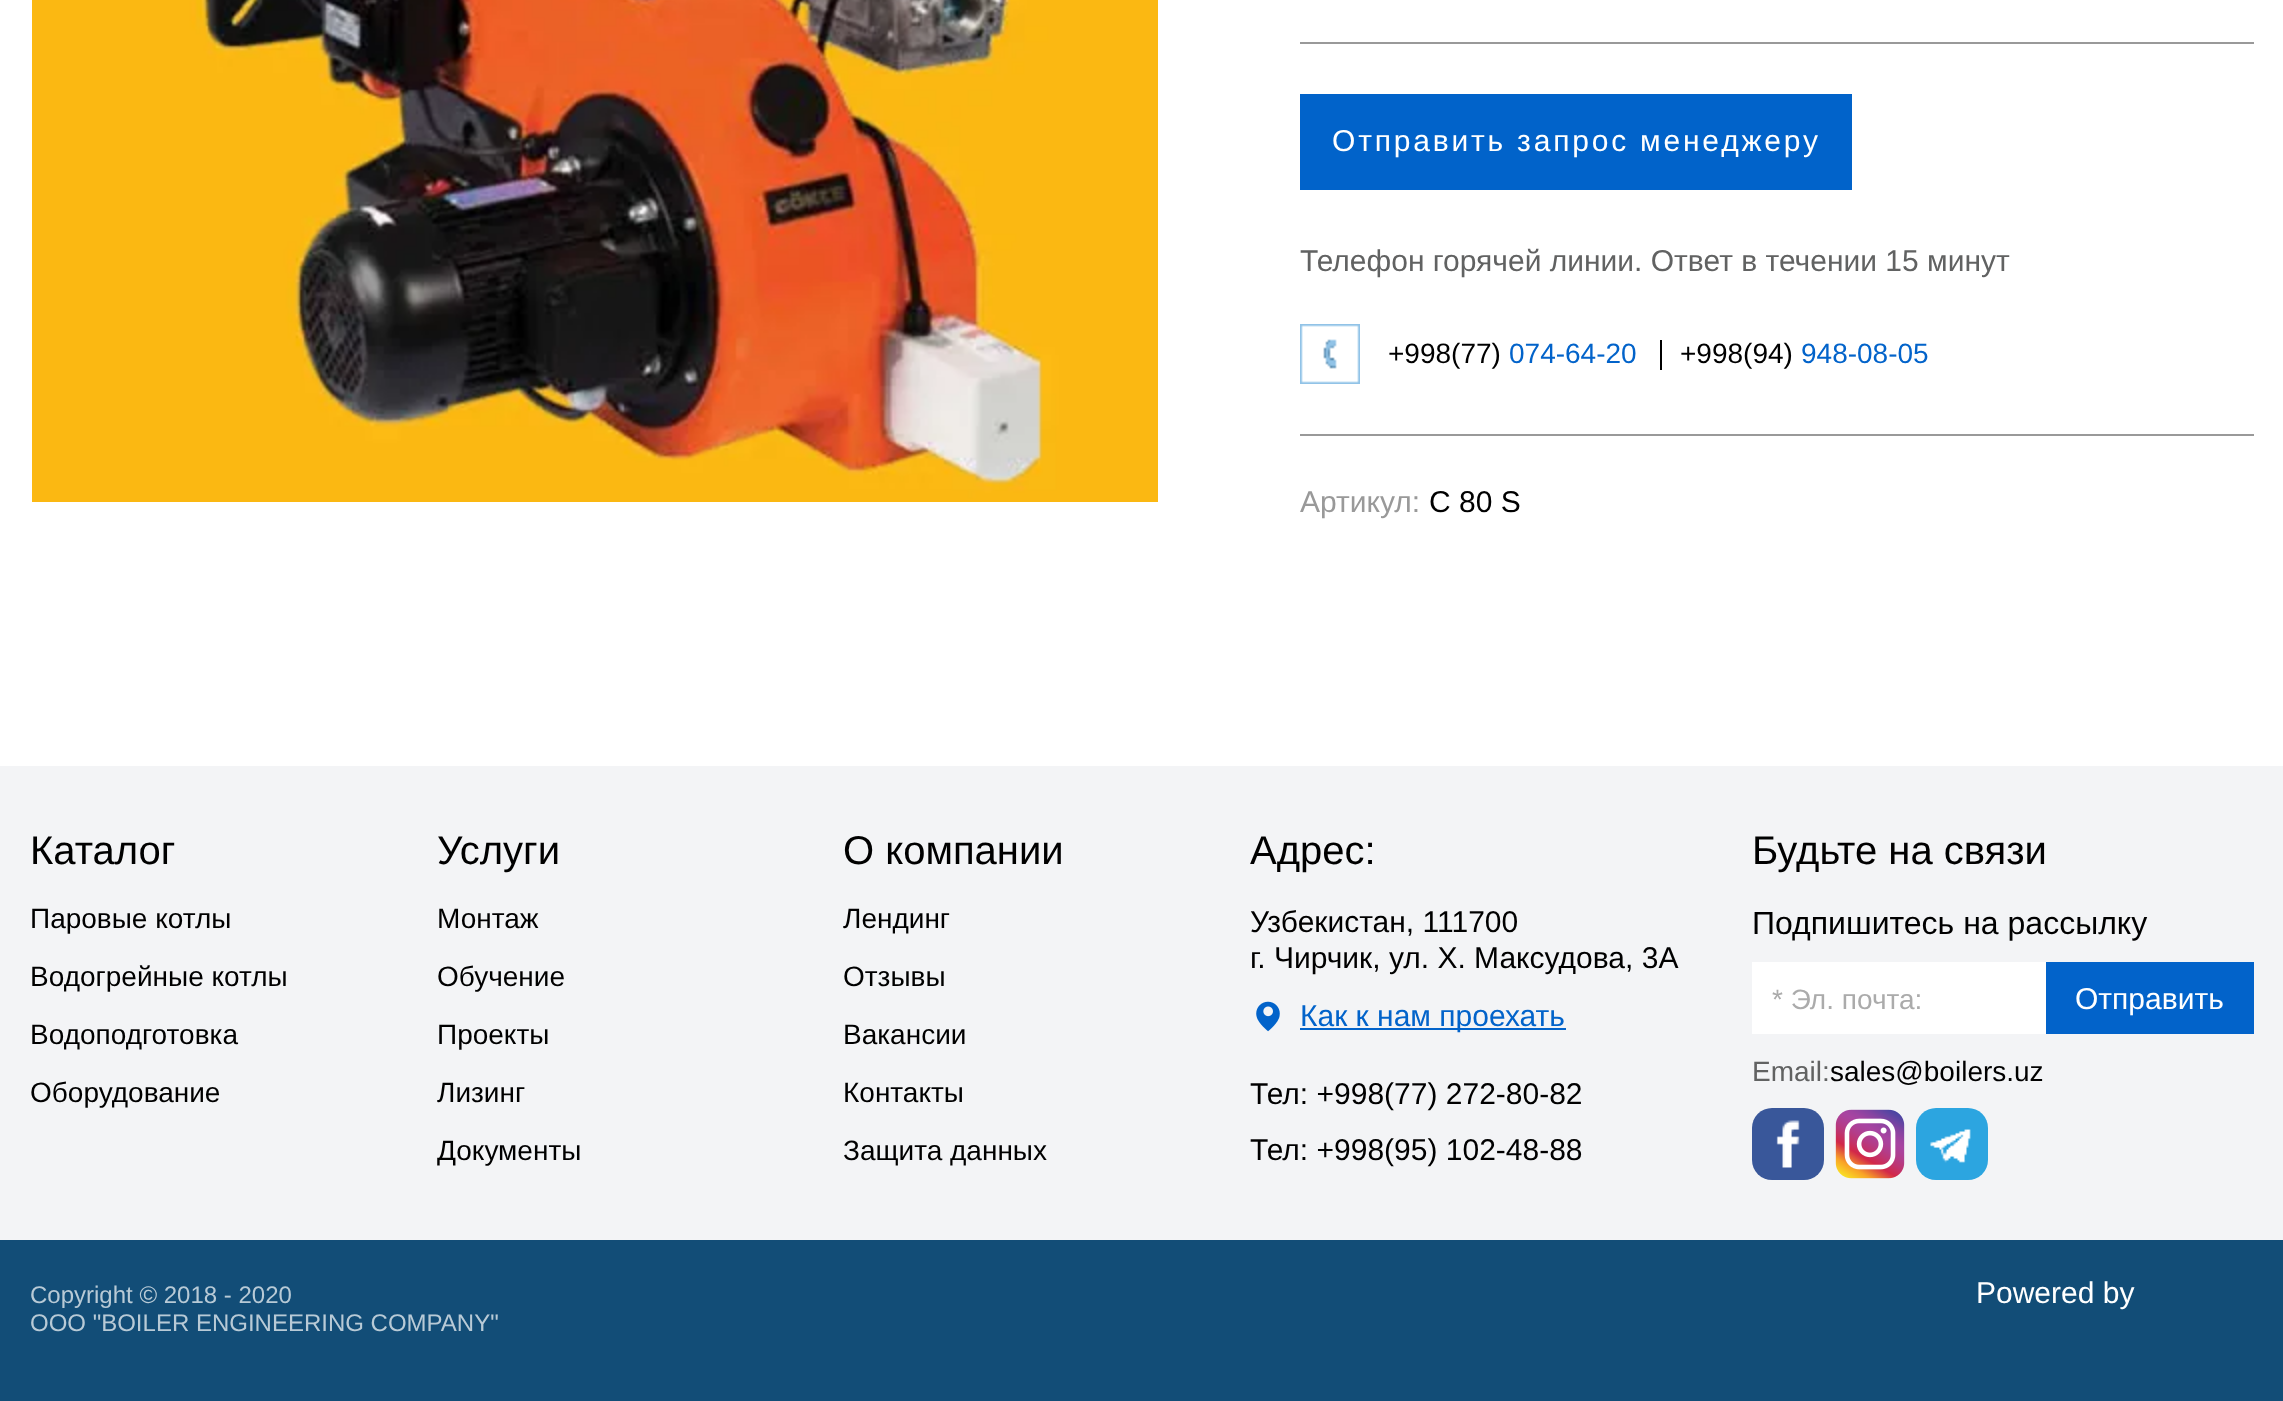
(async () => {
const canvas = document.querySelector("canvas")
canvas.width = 2283
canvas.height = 1401
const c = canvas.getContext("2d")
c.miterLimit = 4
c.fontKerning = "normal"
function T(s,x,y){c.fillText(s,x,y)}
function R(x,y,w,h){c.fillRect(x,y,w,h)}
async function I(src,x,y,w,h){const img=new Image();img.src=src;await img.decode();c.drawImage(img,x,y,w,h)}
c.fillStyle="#fff"
R(0,0,2283,1401)
await I("1.png",32,0,1126,502)
c.fillStyle="#999"
R(1300,42,954,2)
R(1300,434,954,2)
c.fillStyle="#0163ca"
R(1300,94,552,96)
c.letterSpacing="2.8px"
c.font="30px Liberation Sans"
c.fillStyle="#fff"
T("Отправить запрос менеджеру",1332,151)
c.letterSpacing="0px"
c.fillStyle="#616262"
T("Телефон горячей линии. Ответ в течении 15 минут",1300,271)
await I("2.png",1300,324,60,60)
c.font="28px Liberation Sans"
c.fillStyle="#000"
T("+998(77)",1388,363)
c.fillStyle="#0263ca"
T("074-64-20",1509,363)
c.fillStyle="#000"
R(1660,340,2,30)
T("+998(94)",1680,363)
c.fillStyle="#0263ca"
T("948-08-05",1801,363)
c.font="30px Liberation Sans"
c.fillStyle="#999"
T("Артикул:",1300,512)
c.fillStyle="#000"
T("C 80 S",1429,512)
c.fillStyle="#f3f4f6"
R(0,766,2283,474)
c.font="40px Liberation Sans"
c.fillStyle="#000"
T("Каталог",30,864)
c.font="28px Liberation Sans"
T("Паровые котлы",30,928)
T("Водогрейные котлы",30,986)
T("Водоподготовка",30,1044)
T("Оборудование",30,1102)
c.font="40px Liberation Sans"
T("Услуги",437,864)
c.font="28px Liberation Sans"
T("Монтаж",437,928)
T("Обучение",437,986)
T("Проекты",437,1044)
T("Лизинг",437,1102)
T("Документы",437,1160)
c.font="40px Liberation Sans"
T("О компании",843,864)
c.font="28px Liberation Sans"
T("Лендинг",843,928)
T("Отзывы",843,986)
T("Вакансии",843,1044)
T("Контакты",843,1102)
T("Защита данных",843,1160)
c.font="40px Liberation Sans"
T("Адрес:",1250,864)
c.font="30px Liberation Sans"
T("Узбекистан, 111700",1250,932)
T("г. Чирчик, ул. Х. Максудова, 3А",1250,968)
await I("3.png",1256,1001,24,31)
c.fillStyle="#0263ca"
R(1300,1028,266,2)
T("Как к нам проехать",1300,1026)
c.fillStyle="#000"
T("Тел: +998(77) 272-80-82",1250,1104)
T("Тел: +998(95) 102-48-88",1250,1160)
c.font="40px Liberation Sans"
T("Будьте на связи",1752,864)
c.font="32px Liberation Sans"
T("Подпишитесь на рассылку",1752,934)
c.fillStyle="#fff"
R(1752,962,294,72)
c.font="28px Liberation Sans"
c.fillStyle="#ababab"
T("* Эл. почта:",1772,1009)
c.fillStyle="#0263ca"
R(2046,962,208,72)
c.font="30px Liberation Sans"
c.fillStyle="#fff"
T("Отправить",2075,1009)
c.font="28px Liberation Sans"
c.fillStyle="#616262"
T("Email:",1752,1081)
c.fillStyle="#000"
T("sales@boilers.uz",1830,1081)
await I("4.png",1752,1108,72,72)
await I("5.png",1835,1109,70,70)
await I("6.png",1916,1108,72,72)
c.fillStyle="#124d77"
R(0,1240,2283,161)
c.font="24px Liberation Sans"
c.fillStyle="#b8cad6"
T("Copyright © 2018 - 2020",30,1303)
T("ООО \"BOILER ENGINEERING COMPANY\"",30,1331)
c.font="30px Liberation Sans"
c.fillStyle="#fff"
T("Powered by",1976,1303)
})()
